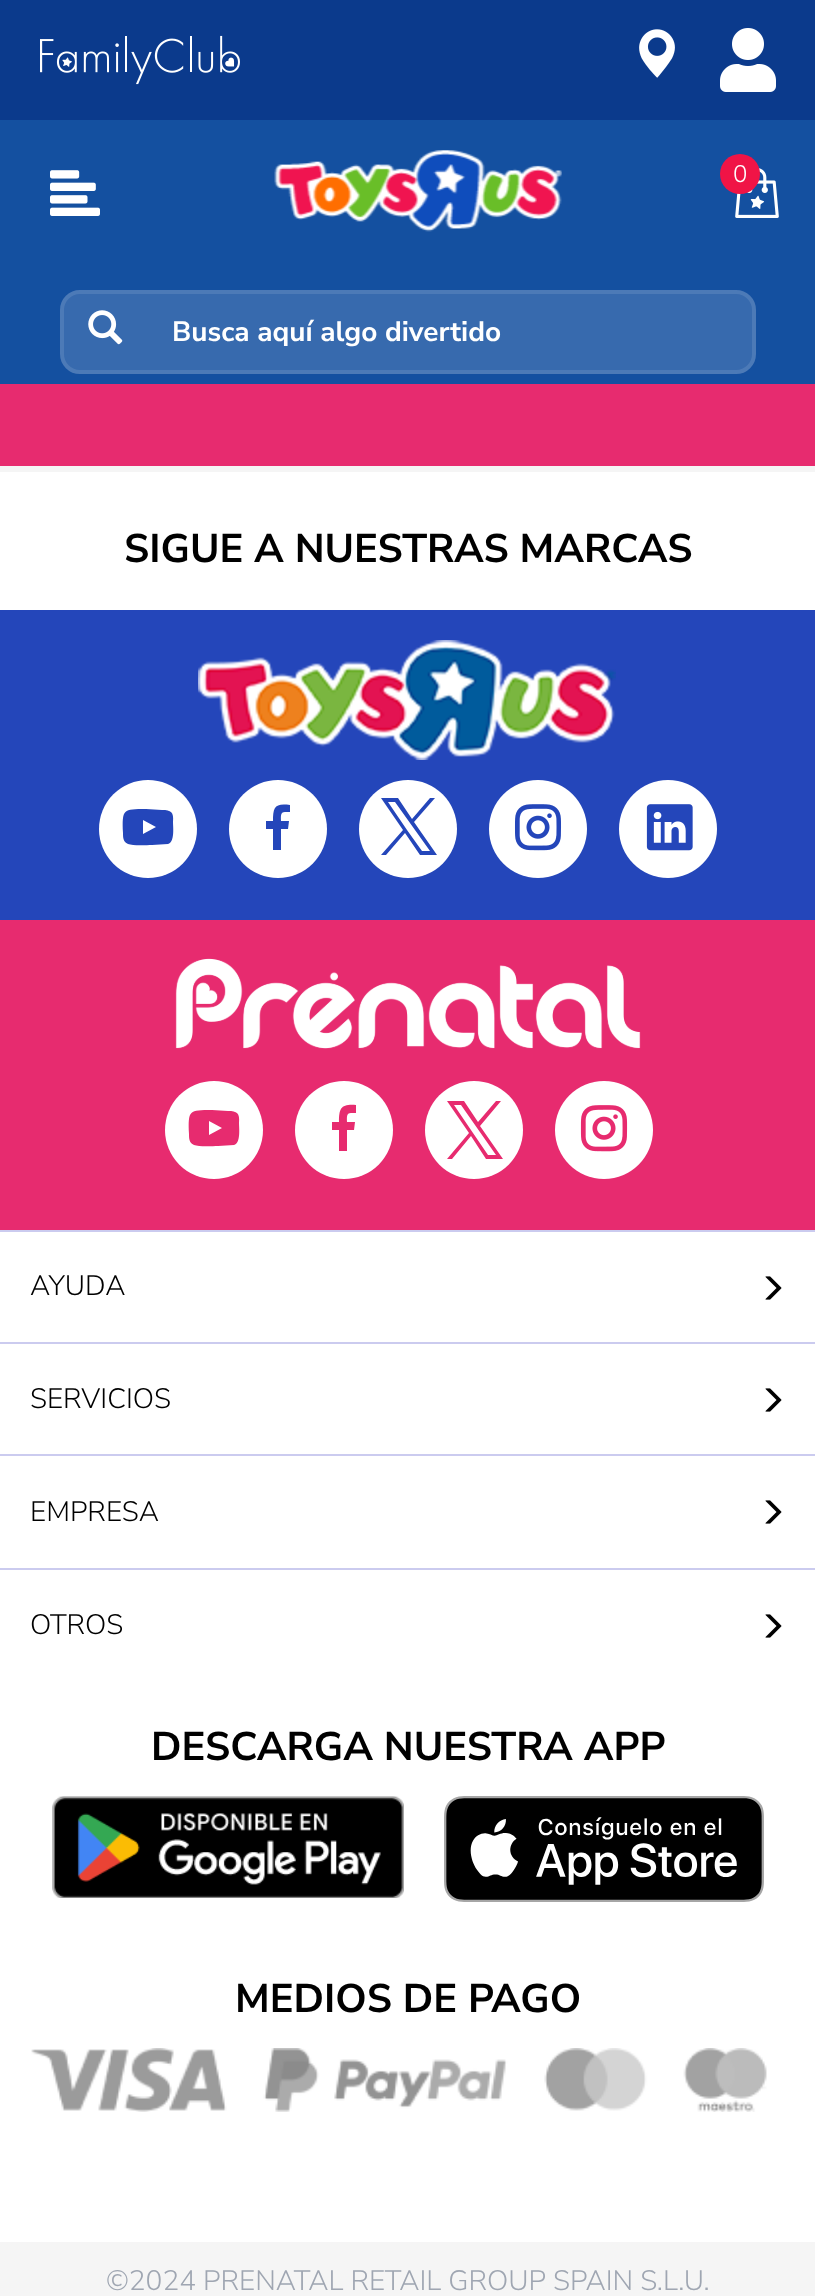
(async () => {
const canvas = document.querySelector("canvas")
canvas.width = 815
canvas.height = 2296
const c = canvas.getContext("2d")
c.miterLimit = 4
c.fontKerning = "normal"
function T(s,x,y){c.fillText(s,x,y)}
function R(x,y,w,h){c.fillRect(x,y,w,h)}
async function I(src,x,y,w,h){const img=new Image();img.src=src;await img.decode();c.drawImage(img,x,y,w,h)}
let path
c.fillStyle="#fff"
R(0,0,815,2296)
c.fillStyle="#1450a0"
R(0,120,815,264)
c.fillStyle="#0b3a8c"
R(0,0,815,120)
await I("1.png",40,35,200,50)
await I("2.png",639,29,36,49)
await I("3.png",720,28,56,64)
await I("4.png",50,170,50,46)
await I("5.png",274,150,288,82)
await I("6.png",735,168,44,50)
c.fillStyle="#f01446"
c.beginPath()
c.arc(740,174,20,0,7)
c.fill()
c.font="300 24px Nunito Sans"
c.fillStyle="#fff"
T("0",733,182)
c.fillStyle="#376aae"
c.beginPath()
c.roundRect(62,292,692,80,18)
c.fill()
c.strokeStyle="#4c7ab7"
c.lineWidth=4
c.stroke()
await I("7.png",88,310,35,35)
c.font="bold 28px Nunito Sans"
c.fillStyle="#fff"
T("Busca aquí algo divertido",172,341)
c.fillStyle="#e72b6f"
R(0,384,815,82)
c.fillStyle="#f5f5f5"
R(0,466,815,6)
c.font="bold 40px Nunito Sans"
c.fillStyle="#000"
T("SIGUE A NUESTRAS MARCAS",124,562)
c.fillStyle="#2446ba"
R(0,610,815,310)
await I("8.png",198,640,418,120)
c.fillStyle="#fff"
c.beginPath()
c.arc(148,829,49,0,7)
c.fill()
c.fillStyle="#2446ba"
path = new Path2D("M173 822c1-10-2-12-11-12l-16-1c-23 0-24 0-23 24c0 4 0 9 5 11c5 2 19 1 24 1l16-1c7-2 5-17 5-22zm-30 12v-14l13 7z")
c.fill(path)
c.fillStyle="#fff"
c.beginPath()
c.arc(278,829,49,0,7)
c.fill()
c.fillStyle="#2446ba"
path = new Path2D("M285 812h5v-7c-15-2-17 2-17 16h-7v8h7v21h8v-21h7l1-8h-8c0-4-1-9 4-9z")
c.fill(path)
c.fillStyle="#fff"
c.beginPath()
c.arc(408,829,49,0,7)
c.fill()
c.fillStyle="#2446ba"
path = new Path2D("M414 822l21-24h-5l-18 21l-14-21h-17l22 32l-22 25h5l19-22l15 22h17zm-7 8l-19-28h7l35 49h-8z")
c.fill(path)
await I("9.png",489,780,98,98)
await I("10.png",619,780,98,98)
c.fillStyle="#e72b6f"
R(0,920,815,310)
await I("11.png",175,958,466,91)
c.fillStyle="#fff"
c.beginPath()
c.arc(214,1130,49,0,7)
c.fill()
c.fillStyle="#e72b6f"
path = new Path2D("M239 1123c1-10-2-12-11-12l-16-1c-23 0-24 0-23 24c0 4 0 9 5 11c5 2 19 1 24 1l16-1c7-2 5-17 5-22zm-30 12v-14l13 7z")
c.fill(path)
c.fillStyle="#fff"
c.beginPath()
c.arc(344,1130,49,0,7)
c.fill()
c.fillStyle="#e72b6f"
path = new Path2D("M351 1113h5v-8c-15-1-17 3-17 17h-7v8h7v21h8v-21h7l1-8h-8c0-4-1-9 4-9z")
c.fill(path)
c.fillStyle="#fff"
c.beginPath()
c.arc(474,1130,49,0,7)
c.fill()
c.fillStyle="#e72b6f"
path = new Path2D("M480 1126l21-25h-5l-18 21l-14-21h-17l22 32l-22 26h5l19-23l15 23h17zm-7 7l-19-28h7l35 50h-8z")
c.fill(path)
await I("12.png",555,1081,98,98)
c.fillStyle="#cbcbef"
R(0,1230,815,2)
c.font="300 28px Nunito Sans"
c.fillStyle="#000"
T("AYUDA",30,1295)
await I("13.png",765,1276,17,24)
c.fillStyle="#cbcbef"
R(0,1342,815,2)
c.fillStyle="#000"
T("SERVICIOS",30,1408)
await I("13.png",765,1388,17,24)
c.fillStyle="#cbcbef"
R(0,1454,815,2)
c.fillStyle="#000"
T("EMPRESA",30,1521)
await I("13.png",765,1500,17,24)
c.fillStyle="#cbcbef"
R(0,1568,815,2)
c.fillStyle="#000"
T("OTROS",30,1634)
await I("13.png",765,1614,17,24)
c.font="bold 40px Nunito Sans"
T("DESCARGA NUESTRA APP",151,1760)
await I("14.png",52,1796,352,102)
await I("15.png",444,1796,320,106)
T("MEDIOS DE PAGO",235,2012)
await I("16.png",31,2048,736,64)
c.fillStyle="#f5f5f5"
R(0,2242,815,54)
c.font="300 28px Nunito Sans"
c.fillStyle="#9fa6b2"
T("©2024 PRENATAL RETAIL GROUP SPAIN S.L.U.",106,2290)
})()
